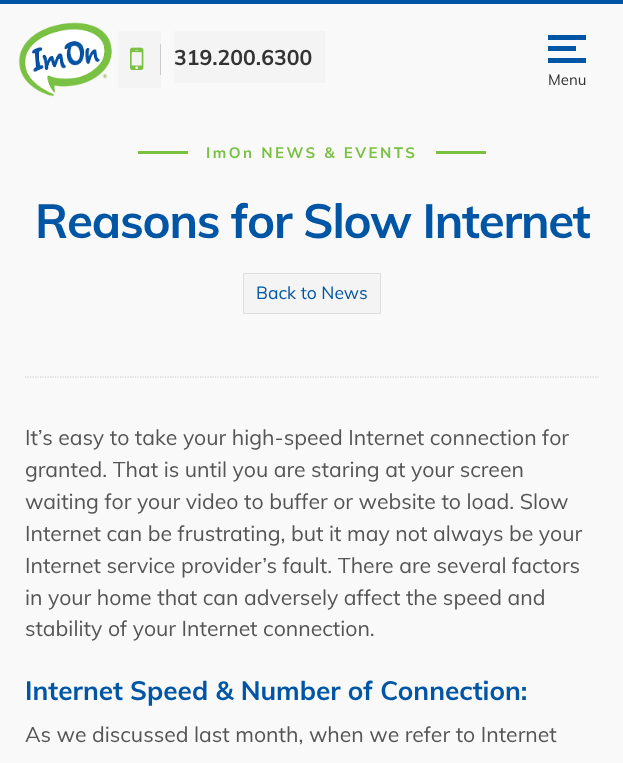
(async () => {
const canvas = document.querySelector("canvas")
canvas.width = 623
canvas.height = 763
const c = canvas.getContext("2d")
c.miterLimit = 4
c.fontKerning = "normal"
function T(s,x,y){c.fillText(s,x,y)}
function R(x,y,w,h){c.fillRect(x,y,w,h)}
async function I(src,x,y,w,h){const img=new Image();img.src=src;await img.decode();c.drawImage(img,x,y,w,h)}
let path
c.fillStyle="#f9f9f9"
R(0,0,623,763)
c.fillStyle="#0155a5"
R(0,0,623,4)
await I("1.png",18,22,94,75)
c.fillStyle="#f4f4f4"
R(118,31,43,57)
R(174,31,151,52)
c.fillStyle="#ccc"
R(160,44,1,31)
await I("2.png",130,47,14,23)
c.font="bold 21.25px Muli"
c.fillStyle="#333"
T("319.200.6300",174,65)
c.fillStyle="#0155a5"
R(548,35,38,5)
R(548,46,28,5)
R(548,58,38,5)
c.font="15px Muli"
c.fillStyle="#333"
T("Menu",548,85)
c.fillStyle="#7ac142"
R(138,151,50,3)
c.letterSpacing="2.5px"
c.font="bold 15px Muli"
T("ImOn NEWS & EVENTS",206,158)
R(436,151,50,3)
c.letterSpacing="-1.25px"
c.font="bold 47.5px Muli"
c.fillStyle="#0155a5"
T("Reasons for Slow Internet",35,238)
c.fillStyle="#f4f4f4"
c.beginPath()
c.rect(243.5,273.5,137,40)
c.fill()
c.strokeStyle="#ddd"
c.stroke()
c.letterSpacing="0px"
c.font="17.5px Muli"
c.fillStyle="#0155a5"
T("Back to News",256,299)
path = new Path2D("M25 377h574")
c.strokeStyle="#ccc"
c.lineWidth=1.2
c.setLineDash([1.25,1.25])
c.stroke(path)
c.font="21.25px Muli"
c.fillStyle="#555"
T("It’s easy to take your high-speed Internet connection for",25,445)
T("granted. That is until you are staring at your screen",25,477)
T("waiting for your video to buffer or website to load. Slow",25,509)
T("Internet can be frustrating, but it may not always be your",25,541)
T("Internet service provider’s fault. There are several factors",25,573)
T("in your home that can adversely affect the speed and",25,605)
T("stability of your Internet connection.",25,636)
c.font="bold 26.25px Muli"
c.fillStyle="#0155a5"
T("Internet Speed & Number of Connection:",25,700)
c.font="21.25px Muli"
c.fillStyle="#555"
T("As we discussed last month, when we refer to Internet",25,742)
})()
